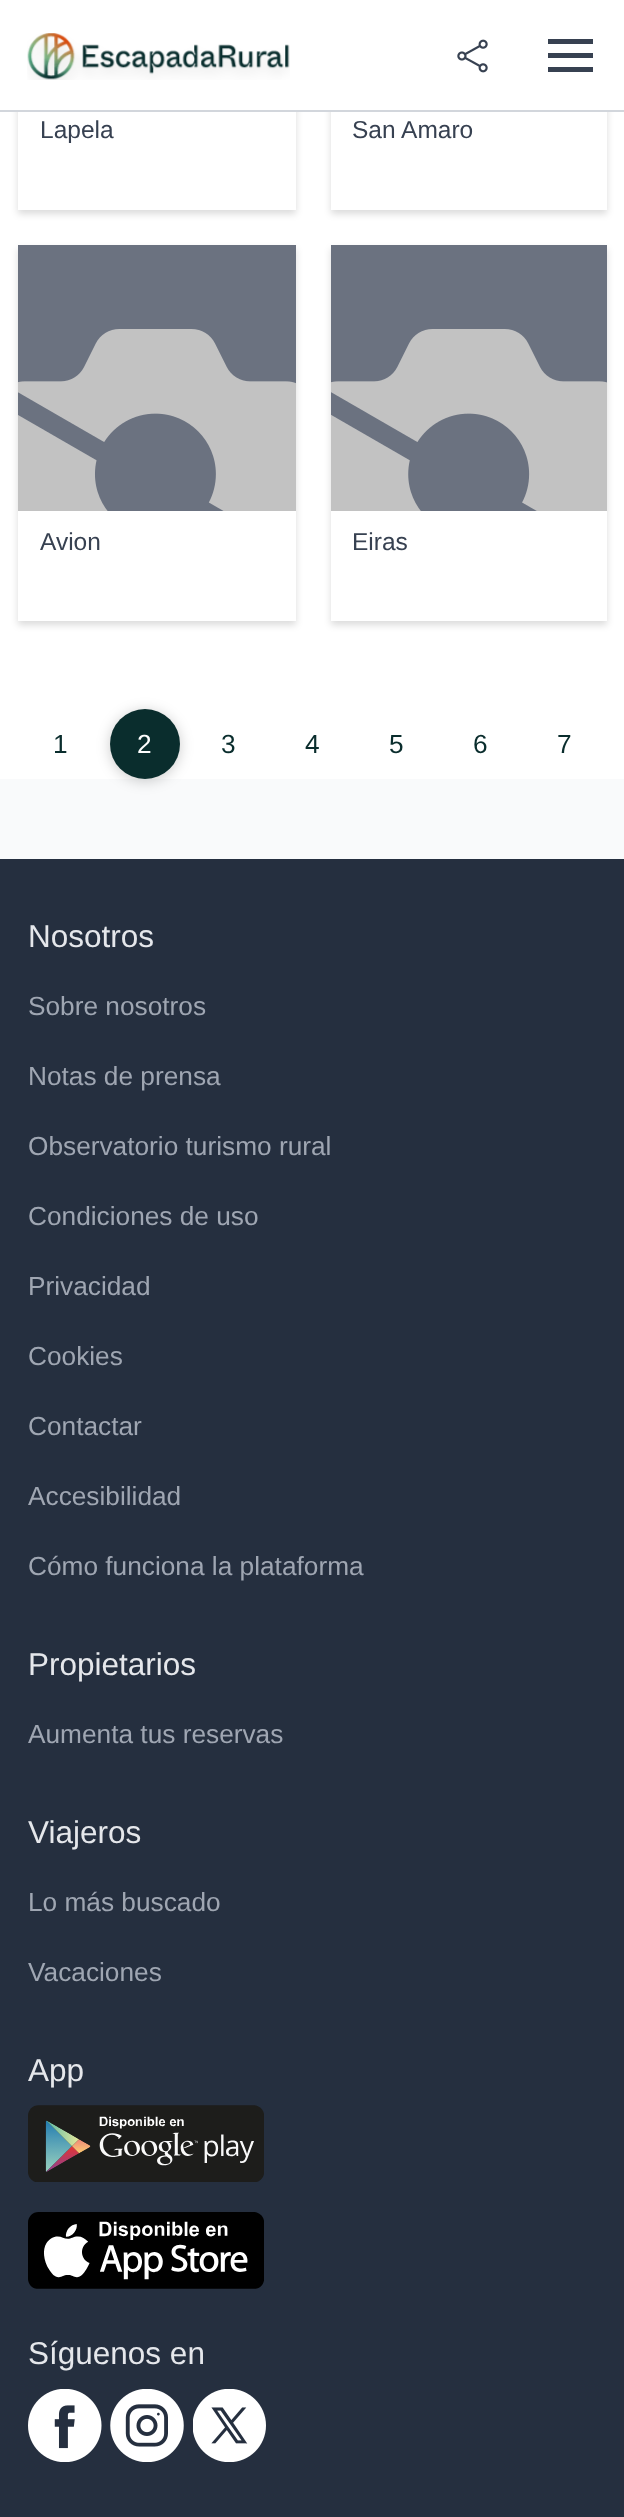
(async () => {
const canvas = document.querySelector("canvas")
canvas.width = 624
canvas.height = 2517
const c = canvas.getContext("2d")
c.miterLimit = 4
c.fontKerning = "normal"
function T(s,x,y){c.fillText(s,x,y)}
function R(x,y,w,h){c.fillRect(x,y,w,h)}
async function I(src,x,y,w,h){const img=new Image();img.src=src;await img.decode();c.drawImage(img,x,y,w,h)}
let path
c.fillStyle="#f9fafb"
R(0,0,624,2517)
c.fillStyle="#fff"
R(0,112,624,667)
c.fillStyle="#00000024"
c.filter="blur(3.5px)"
c.beginPath()
c.rect(18,-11,278,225)
c.fill()
c.filter="none"
c.save()
path = new Path2D("M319 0h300v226h-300zm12-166h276v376h-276z")
c.clip(path,"evenodd")
c.filter="blur(3.5px)"
c.beginPath()
c.rect(331,-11,276,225)
c.fill()
c.filter="none"
c.restore()
c.fillStyle="#fff"
R(0,0,624,110)
c.fillStyle="#d2d6dc"
R(0,110,624,2)
await I("1.png",27,33,263,47)
await I("2.png",457,39,31,34)
c.fillStyle="#374151"
R(548,39,45,5)
R(548,53,45,5)
R(548,67,45,5)
c.fillStyle="#fff"
R(18,112,278,98)
c.font="24.5px Liberation Sans"
c.fillStyle="#374151"
T("Lapela",40,138)
T("San Amaro",352,138)
c.fillStyle="#00000024"
c.filter="blur(3.5px)"
c.beginPath()
c.rect(18,249,278,376)
c.fill()
c.filter="none"
c.fillStyle="#6b7280"
R(18,245,278,266)
await I("3.png",18,329,278,182)
c.fillStyle="#fff"
R(18,511,278,110)
c.fillStyle="#374151"
T("Avion",40,550)
c.save()
path = new Path2D("M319 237h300v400h-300zm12 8h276v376h-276z")
c.clip(path,"evenodd")
c.fillStyle="#00000024"
c.filter="blur(3.5px)"
c.beginPath()
c.rect(331,249,276,376)
c.fill()
c.filter="none"
c.restore()
c.fillStyle="#6b7280"
R(331,245,276,266)
await I("4.png",331,329,276,182)
c.fillStyle="#374151"
T("Eiras",352,550)
c.font="26.25px Liberation Sans"
c.fillStyle="#0a2d2d"
T("1",53,753)
c.fillStyle="#00000033"
c.filter="blur(7px)"
c.beginPath()
c.roundRect(110,711,70,70,35)
c.fill()
c.filter="none"
c.fillStyle="#0a2d2d"
c.beginPath()
c.arc(145,744,35,0,7)
c.fill()
c.fillStyle="#fff"
T("2",137,753)
c.fillStyle="#0a2d2d"
T("3",221,753)
T("4",305,753)
T("5",389,753)
T("6",473,753)
T("7",557,753)
c.fillStyle="#252f3f"
R(0,859,624,1658)
c.font="31.5px Liberation Sans"
c.fillStyle="#e5e7eb"
T("Nosotros",28,947)
c.font="26.25px Liberation Sans"
c.fillStyle="#9fa6b2"
T("Sobre nosotros",28,1015)
T("Notas de prensa",28,1085)
T("Observatorio turismo rural",28,1155)
T("Condiciones de uso",28,1225)
T("Privacidad",28,1295)
T("Cookies",28,1365)
T("Contactar",28,1435)
T("Accesibilidad",28,1505)
T("Cómo funciona la plataforma",28,1575)
c.font="31.5px Liberation Sans"
c.fillStyle="#e5e7eb"
T("Propietarios",28,1675)
c.font="26.25px Liberation Sans"
c.fillStyle="#9fa6b2"
T("Aumenta tus reservas",28,1743)
c.font="31.5px Liberation Sans"
c.fillStyle="#e5e7eb"
T("Viajeros",28,1843)
c.font="26.25px Liberation Sans"
c.fillStyle="#9fa6b2"
T("Lo más buscado",28,1911)
T("Vacaciones",28,1981)
c.font="31.5px Liberation Sans"
c.fillStyle="#e5e7eb"
T("App",28,2081)
await I("5.png",28,2105,236,77)
await I("6.png",28,2212,236,77)
T("Síguenos en",28,2364)
await I("7.png",28,2389,74,73)
await I("8.png",110,2389,74,73)
await I("9.png",193,2389,73,73)
})()
